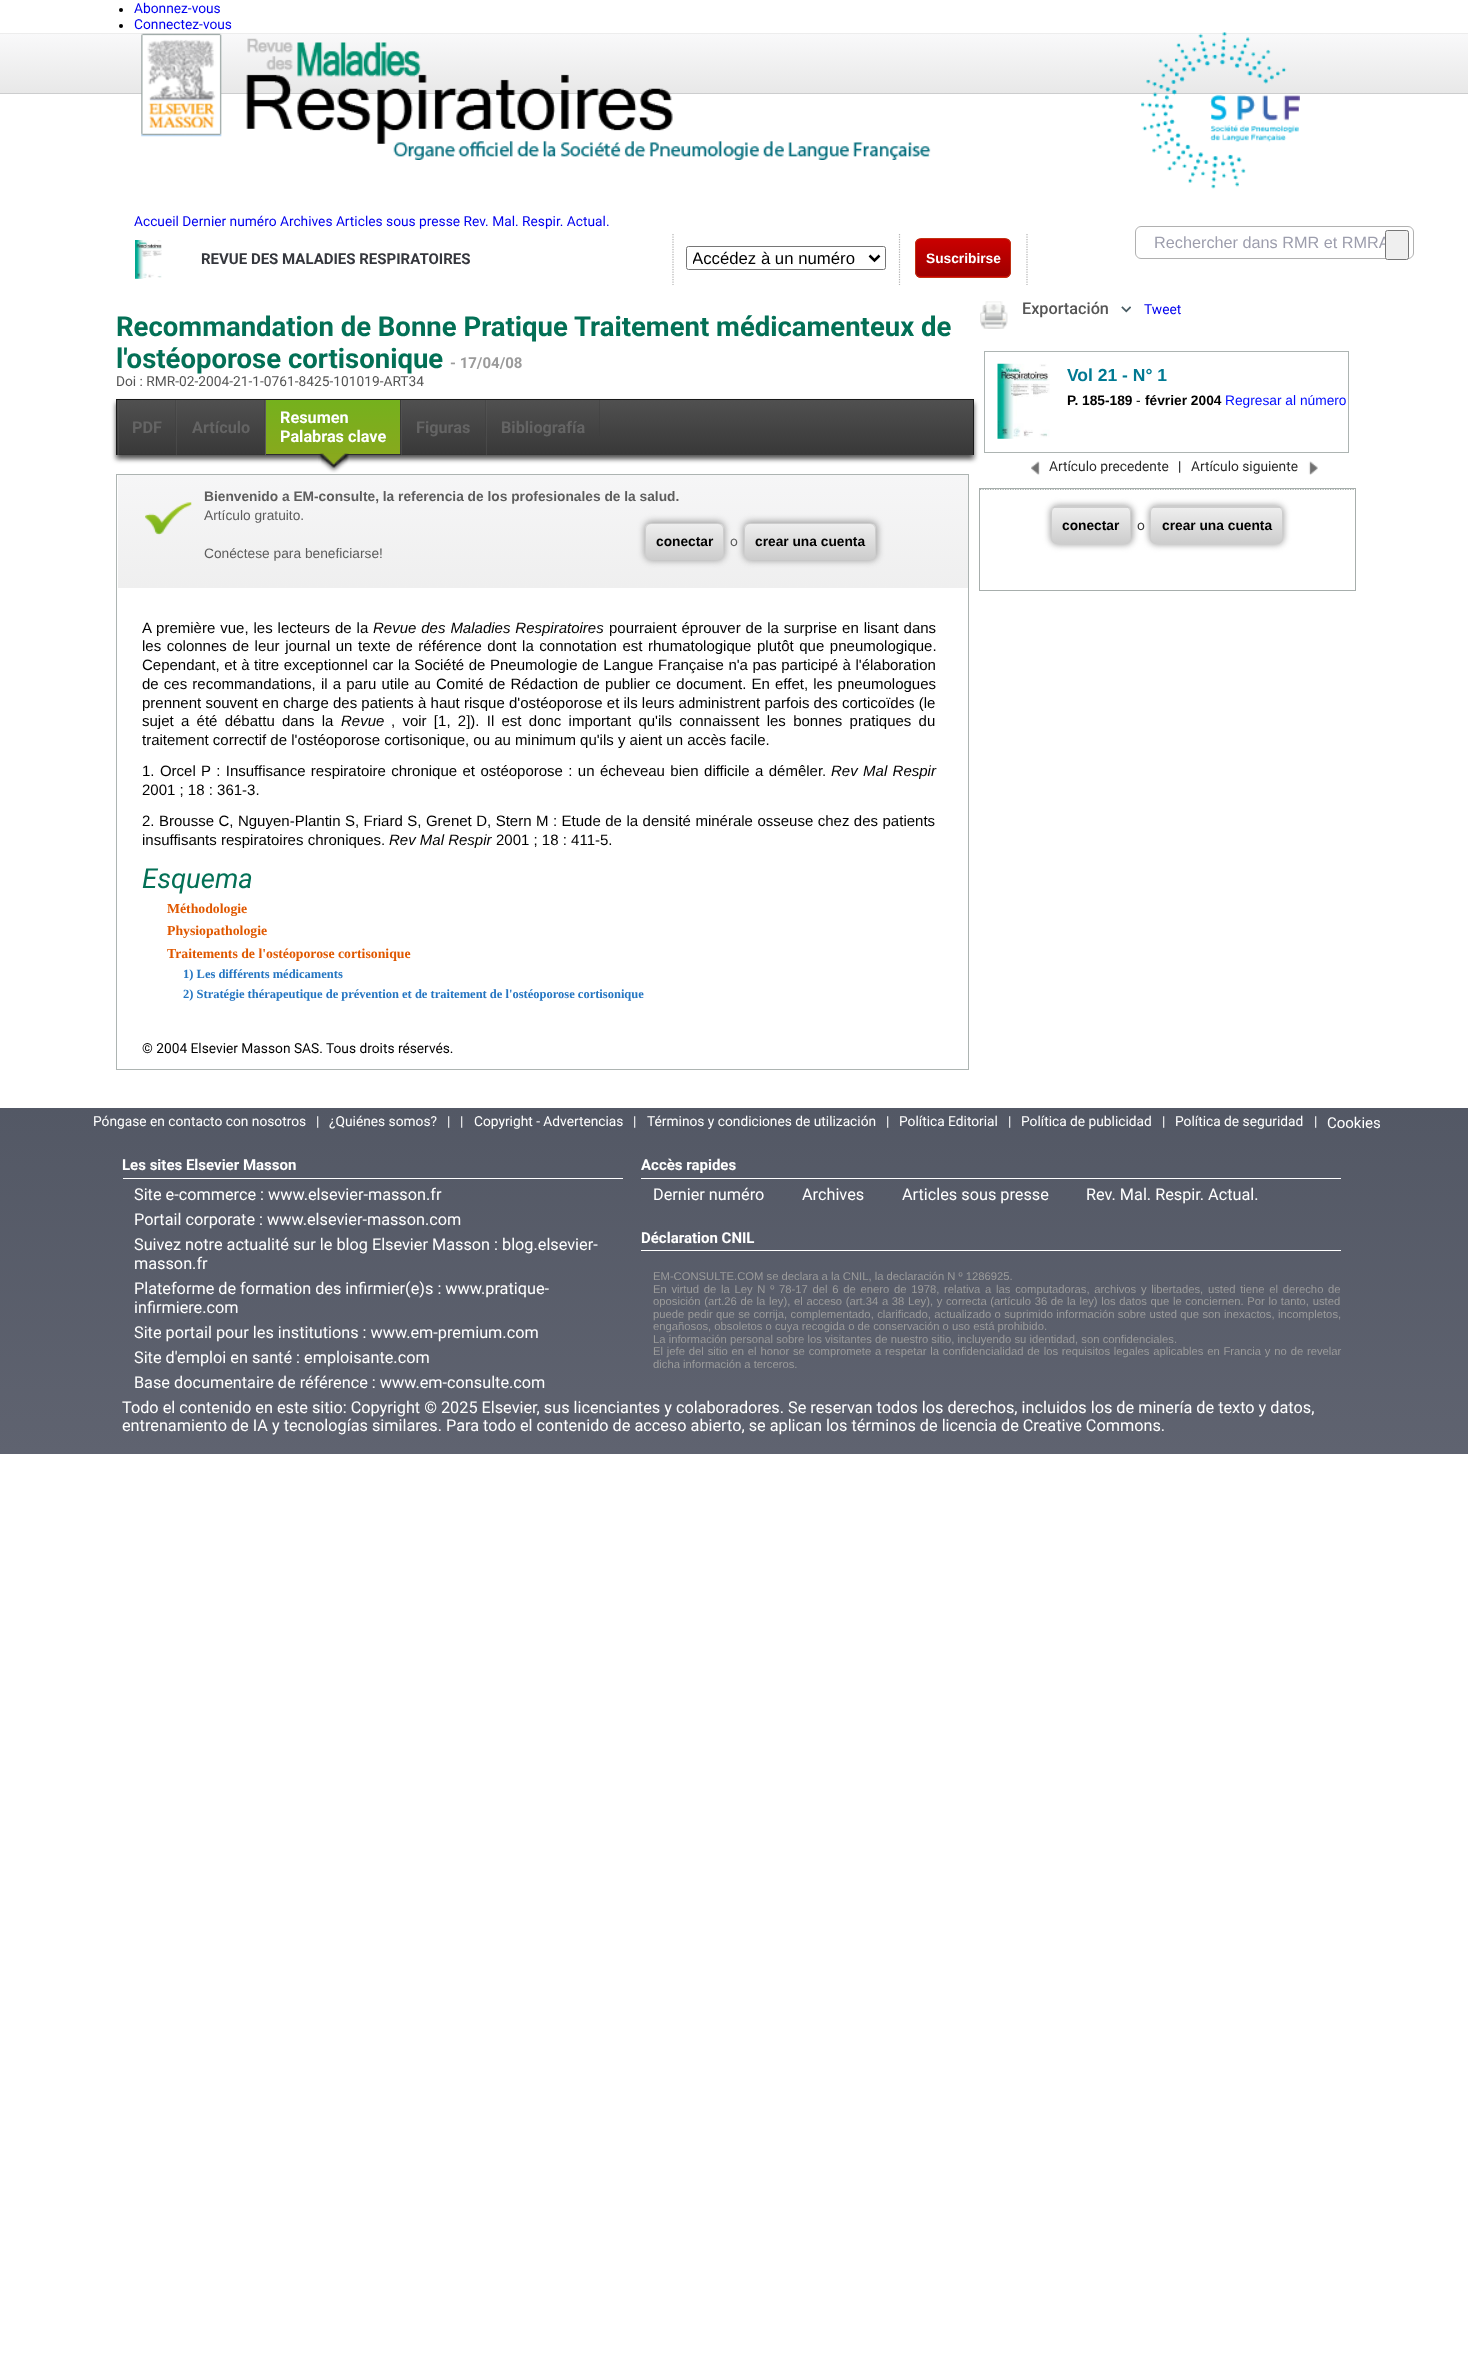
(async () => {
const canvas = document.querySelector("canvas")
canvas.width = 1468
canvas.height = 2368
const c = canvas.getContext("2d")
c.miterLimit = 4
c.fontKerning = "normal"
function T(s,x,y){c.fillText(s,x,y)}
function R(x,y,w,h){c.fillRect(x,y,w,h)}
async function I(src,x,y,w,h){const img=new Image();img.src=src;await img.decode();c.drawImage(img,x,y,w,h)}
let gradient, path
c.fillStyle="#fff"
R(0,0,1468,2368)
c.fillStyle="#000"
c.beginPath()
c.arc(121,10,2,0,7)
c.fill()
c.font="13.75px Roboto"
c.fillStyle="#00e"
T("Abonnez-vous",134,13)
c.fillStyle="#000"
c.beginPath()
c.arc(121,26,2,0,7)
c.fill()
c.fillStyle="#00e"
T("Connectez-vous",134,29)
gradient = c.createLinearGradient(734,34,734,93)
gradient.addColorStop(0,"#f9f9fa")
gradient.addColorStop(1,"#e8e8e8")
c.fillStyle = gradient
R(0,34,1468,59)
c.fillStyle="#ededed"
R(0,33,1468,1)
c.fillStyle="#cccdce"
R(0,93,1468,1)
await I("1.png",141,33,790,127)
await I("2.png",1141,32,159,157)
c.fillStyle="#00e"
T("Accueil Dernier numéro Archives Articles sous presse Rev. Mal. Respir. Actual.",134,226)
c.beginPath()
c.roundRect(1135.5,226.5,278,32,5.5)
c.strokeStyle="#b1b1b1"
c.stroke()
c.font="16.25px Liberation Sans"
c.fillStyle="#9d9ead"
T("Rechercher dans RMR et RMRA",1154,248)
c.fillStyle="#efefef"
c.beginPath()
c.roundRect(1385.5,230.5,23,29,2)
c.fill()
c.strokeStyle="#767676"
c.stroke()
await I("3.png",135,240,27,39)
c.font="bold 15px Roboto"
c.fillStyle="#35373d"
T("REVUE DES MALADIES RESPIRATOIRES",201,264)
path = new Path2D("M673 234v51")
c.strokeStyle="#b2b2b2"
c.lineWidth=1.2
c.setLineDash([1.25,1.25])
c.stroke(path)
c.beginPath()
c.roundRect(686.5,246.5,199,23,2)
c.strokeStyle="#767676"
c.lineWidth=1
c.setLineDash([])
c.stroke()
path = new Path2D("M869.5 255.5l5 5l5-5")
c.strokeStyle="#000"
c.lineWidth=2.5
c.stroke(path)
c.save()
c.beginPath()
c.rect(693,248,172,21)
c.clip()
c.font="16.75px Liberation Sans"
c.fillStyle="#000"
T("Accédez à un numéro",692,264)
c.restore()
path = new Path2D("M899.5 234v51")
c.strokeStyle="#b2b2b2"
c.lineWidth=1.2
c.setLineDash([1.25,1.25])
c.stroke(path)
c.save()
c.beginPath()
c.roundRect(915,238,96,40,6)
c.clip()
gradient = c.createLinearGradient(963,239,963,276)
gradient.addColorStop(0,"#ca0000")
gradient.addColorStop(1,"#a00000")
c.fillStyle = gradient
R(915,239,96,37)
gradient = c.createLinearGradient(963,276,963,314)
gradient.addColorStop(0,"#ca0000")
gradient.addColorStop(1,"#a00000")
c.fillStyle = gradient
R(915,276,96,2)
c.restore()
c.beginPath()
c.roundRect(915.5,238.5,95,39,5.5)
c.strokeStyle="#c03213"
c.lineWidth=1
c.setLineDash([])
c.stroke()
c.font="bold 13.75px Liberation Sans"
c.fillStyle="#fff"
T("Suscribirse",926,263)
path = new Path2D("M1027 234v51")
c.strokeStyle="#b2b2b2"
c.lineWidth=1.2
c.setLineDash([1.25,1.25])
c.stroke(path)
c.font="bold 27.5px Roboto"
c.fillStyle="#037056"
T("Recommandation de Bonne Pratique Traitement médicamenteux de",116,336)
T("l'ostéoporose cortisonique",116,368)
c.font="bold 15px Roboto"
c.fillStyle="#9b9b9b"
T("- 17/04/08",450,368)
c.font="13.75px Roboto"
c.fillStyle="#555"
T("Doi : RMR-02-2004-21-1-0761-8425-101019-ART34",116,386)
c.fillStyle="#525252"
c.filter="blur(2.5px)"
c.beginPath()
c.rect(116,403,858,56)
c.fill()
c.filter="none"
gradient = c.createLinearGradient(545,400,545,455)
gradient.addColorStop(0,"#505050")
gradient.addColorStop(1,"#383838")
c.fillStyle = gradient
R(117,400,856,55)
gradient = c.createLinearGradient(545,400,545,455)
gradient.addColorStop(0,"#545454")
gradient.addColorStop(1,"#464646")
c.fillStyle = gradient
R(486,400,1,55)
gradient = c.createLinearGradient(545,400,545,455)
gradient.addColorStop(0,"#484848")
gradient.addColorStop(1,"#393939")
c.fillStyle = gradient
R(599,400,1,36)
gradient = c.createLinearGradient(545,400,545,455)
gradient.addColorStop(0,"#545454")
gradient.addColorStop(1,"#464646")
c.fillStyle = gradient
R(401,400,1,55)
gradient = c.createLinearGradient(545,400,545,455)
gradient.addColorStop(0,"#484848")
gradient.addColorStop(1,"#393939")
c.fillStyle = gradient
R(485,400,1,36)
gradient = c.createLinearGradient(545,400,545,455)
gradient.addColorStop(0,"#545454")
gradient.addColorStop(1,"#464646")
c.fillStyle = gradient
R(176,400,1,55)
gradient = c.createLinearGradient(545,400,545,455)
gradient.addColorStop(0,"#484848")
gradient.addColorStop(1,"#393939")
c.fillStyle = gradient
R(264,400,1,36)
gradient = c.createLinearGradient(545,400,545,455)
gradient.addColorStop(0,"#545454")
gradient.addColorStop(1,"#464646")
c.fillStyle = gradient
R(118,400,1,55)
gradient = c.createLinearGradient(545,400,545,455)
gradient.addColorStop(0,"#484848")
gradient.addColorStop(1,"#393939")
c.fillStyle = gradient
R(175,400,1,36)
c.fillStyle="#191919"
R(116,399,858,1)
R(973,399,1,56)
R(116,399,1,56)
c.fillStyle="#343434"
R(118,454,147,1)
c.fillStyle="#444"
R(118,454,1,1)
c.font="bold 16.25px Roboto"
c.fillStyle="#646464"
T("PDF",132,433)
c.fillStyle="#444"
R(176,454,1,1)
c.fillStyle="#646464"
T("Artículo",192,433)
gradient = c.createLinearGradient(333,400,333,454)
gradient.addColorStop(0,"#75b11d")
gradient.addColorStop(1,"#87a91d")
c.fillStyle = gradient
R(266,400,134,54)
c.fillStyle="#3b3b3b"
R(400,400,1,55)
c.fillStyle="#2e2e2e"
R(265,454,136,1)
c.fillStyle="#5b5b5b"
R(265,400,1,55)
c.fillStyle="#fff"
T("Resumen",280,423)
T("Palabras clave",280,442)
await I("4.png",318,453,31,20)
c.fillStyle="#343434"
R(401,454,199,1)
c.fillStyle="#444"
R(401,454,1,1)
c.fillStyle="#646464"
T("Figuras",416,433)
c.fillStyle="#444"
R(486,454,1,1)
c.fillStyle="#646464"
T("Bibliografía",501,433)
c.strokeStyle="#adb4b2"
c.lineWidth=1
c.setLineDash([])
c.strokeRect(116.5,474.5,852,595)
gradient = c.createLinearGradient(543,475,543,588)
gradient.addColorStop(0,"#f6f6f7")
gradient.addColorStop(1,"#efefef")
c.fillStyle = gradient
R(118,475,850,113)
await I("5.png",145,502,47,33)
c.font="bold 13.75px Liberation Sans"
c.fillStyle="#5d5d5d"
T("Bienvenido a EM-consulte, la referencia de los profesionales de la salud.",204,501)
c.font="13.75px Liberation Sans"
T("Artículo gratuito.",204,520)
T("Conéctese para beneficiarse!",204,558)
c.fillStyle="#a6a6a6"
c.filter="blur(3px)"
c.beginPath()
c.roundRect(644,521,81,40,8)
c.fill()
c.filter="none"
c.save()
c.beginPath()
c.roundRect(645,523,79,37,6)
c.clip()
gradient = c.createLinearGradient(684,524,684,559)
gradient.addColorStop(0,"#eee")
gradient.addColorStop(1,"#cdcdcd")
c.fillStyle = gradient
R(645,524,79,35)
c.restore()
c.beginPath()
c.roundRect(645.5,523.5,78,36,5.5)
c.strokeStyle="#cdcdcd"
c.stroke()
c.font="bold 13.75px Liberation Sans"
c.fillStyle="#000"
T("conectar",656,546)
c.font="13.75px Roboto"
c.fillStyle="#5d5d5d"
T("o",730,546)
c.fillStyle="#a6a6a6"
c.filter="blur(3px)"
c.beginPath()
c.roundRect(743,521,135,40,8)
c.fill()
c.filter="none"
c.save()
c.beginPath()
c.roundRect(744,523,132,37,6)
c.clip()
gradient = c.createLinearGradient(810,524,810,559)
gradient.addColorStop(0,"#eee")
gradient.addColorStop(1,"#cdcdcd")
c.fillStyle = gradient
R(744,524,132,35)
c.restore()
c.beginPath()
c.roundRect(744.5,523.5,131,36,5.5)
c.stroke()
c.font="bold 13.75px Liberation Sans"
c.fillStyle="#000"
T("crear una cuenta",755,546)
c.wordSpacing="0.75px"
c.font="15px Liberation Sans"
T("A première vue, les lecteurs de la",142,633)
c.font="italic 15px Liberation Sans"
T("Revue des Maladies Respiratoires",373,633)
c.font="15px Liberation Sans"
T("pourraient éprouver de la surprise en lisant dans",609,633)
c.wordSpacing="1.4px"
T("les colonnes de leur journal un texte de référence dont la connotation est rhumatologique plutôt que pneumologique.",142,651)
c.wordSpacing="0.4px"
T("Cependant, et à titre exceptionnel car la Société de Pneumologie de Langue Française n'a pas participé à l'élaboration",142,670)
c.wordSpacing="1px"
T("de ces recommandations, il a paru utile au Comité de Rédaction de publier ce document. En effet, les pneumologues",142,689)
c.wordSpacing="0px"
T("prennent souvent en charge des patients à haut risque d'ostéoporose et ils leurs administrent parfois des corticoïdes (le",142,708)
c.wordSpacing="3.1px"
T("sujet a été débattu dans la",142,726)
c.wordSpacing="0px"
c.font="italic 15px Liberation Sans"
T("Revue",341,726)
c.wordSpacing="3.1px"
c.font="15px Liberation Sans"
T(", voir [1, 2]). Il est donc important qu'ils connaissent les bonnes pratiques du",391,726)
c.wordSpacing="0px"
T("traitement correctif de l'ostéoporose cortisonique, ou au minimum qu'ils y aient un accès facile.",142,745)
c.wordSpacing="1.2px"
T("1. Orcel P : Insuffisance respiratoire chronique et ostéoporose : un écheveau bien difficile a démêler.",142,776)
c.font="italic 15px Liberation Sans"
T("Rev Mal Respir",831,776)
c.wordSpacing="0px"
c.font="15px Liberation Sans"
T("2001 ; 18 : 361-3.",142,795)
c.wordSpacing="0.3px"
T("2. Brousse C, Nguyen-Plantin S, Friard S, Grenet D, Stern M : Etude de la densité minérale osseuse chez des patients",142,826)
c.wordSpacing="0px"
T("insuffisants respiratoires chroniques.",142,845)
c.font="italic 15px Liberation Sans"
T("Rev Mal Respir",389,845)
c.font="15px Liberation Sans"
T("2001 ; 18 : 411-5.",496,845)
c.font="italic 27.5px Roboto"
c.fillStyle="#037056"
T("Esquema",142,888)
c.font="bold 13.75px Liberation Serif"
c.fillStyle="#e05800"
T("Méthodologie",167,913)
T("Physiopathologie",167,935)
T("Traitements de l'ostéoporose cortisonique",167,958)
c.font="bold 12.5px Liberation Serif"
c.fillStyle="#2576c2"
T("1) Les différents médicaments",183,978)
T("2) Stratégie thérapeutique de prévention et de traitement de l'ostéoporose cortisonique",183,998)
c.font="13.75px Roboto"
c.fillStyle="#000"
T("© 2004 Elsevier Masson SAS. Tous droits réservés.",142,1053)
await I("6.png",980,301,28,28)
c.font="500 16.25px Roboto"
c.fillStyle="#555"
T("Exportación",1022,314)
await I("7.png",1121,306,10,7)
c.font="13.75px Roboto"
c.fillStyle="#00e"
T("Tweet",1144,314)
c.strokeStyle="#adb4b2"
c.strokeRect(984.5,351.5,364,101)
await I("8.png",997,363,53,76)
c.font="bold 17.5px Liberation Sans"
c.fillStyle="#007992"
T("Vol 21 - N° 1",1067,381)
c.font="bold 13.75px Liberation Sans"
c.fillStyle="#000"
T("P. 185-189",1067,405)
c.font="13.75px Liberation Sans"
T("-",1136,405)
c.font="bold 13.75px Liberation Sans"
T("février 2004",1145,405)
c.font="13.75px Liberation Sans"
c.fillStyle="#000cff"
T("Regresar al número",1225,405)
await I("9.png",1031,461,9,14)
c.font="13.75px Roboto"
c.fillStyle="#2b2b2b"
T("Artículo precedente",1049,471)
c.fillStyle="#000"
T("|",1178,471)
c.fillStyle="#2b2b2b"
T("Artículo siguiente",1191,471)
await I("10.png",1308,461,10,14)
c.strokeStyle="#a7aeac"
c.strokeRect(979.5,488.5,376,102)
path = new Path2D("M980 489.5h375")
c.lineWidth=1.2
c.setLineDash([1.25,1.25])
c.stroke(path)
c.fillStyle="#a6a6a6"
c.filter="blur(3px)"
c.beginPath()
c.roundRect(1050,505,83,40,8)
c.fill()
c.filter="none"
c.save()
c.beginPath()
c.roundRect(1051,506,80,38,6)
c.clip()
gradient = c.createLinearGradient(1091,508,1091,543)
gradient.addColorStop(0,"#eee")
gradient.addColorStop(1,"#cdcdcd")
c.fillStyle = gradient
R(1051,508,80,35)
gradient = c.createLinearGradient(1091,473,1091,508)
gradient.addColorStop(0,"#eee")
gradient.addColorStop(1,"#cdcdcd")
c.fillStyle = gradient
R(1051,506,80,2)
c.restore()
c.beginPath()
c.roundRect(1051.5,506.5,79,37,5.5)
c.strokeStyle="#cdcdcd"
c.lineWidth=1
c.setLineDash([])
c.stroke()
c.font="bold 13.75px Liberation Sans"
c.fillStyle="#000"
T("conectar",1062,530)
c.font="13.75px Roboto"
c.fillStyle="#373737"
T("o",1137,530)
c.fillStyle="#a6a6a6"
c.filter="blur(3px)"
c.beginPath()
c.roundRect(1149,505,135,40,8)
c.fill()
c.filter="none"
c.save()
c.beginPath()
c.roundRect(1150,506,133,38,6)
c.clip()
gradient = c.createLinearGradient(1216,508,1216,543)
gradient.addColorStop(0,"#eee")
gradient.addColorStop(1,"#cdcdcd")
c.fillStyle = gradient
R(1150,508,133,35)
gradient = c.createLinearGradient(1216,473,1216,508)
gradient.addColorStop(0,"#eee")
gradient.addColorStop(1,"#cdcdcd")
c.fillStyle = gradient
R(1150,506,133,2)
c.restore()
c.beginPath()
c.roundRect(1150.5,506.5,132,37,5.5)
c.stroke()
c.font="bold 13.75px Liberation Sans"
c.fillStyle="#000"
T("crear una cuenta",1162,530)
gradient = c.createLinearGradient(734,1107,734,1454)
gradient.addColorStop(0,"#535865")
gradient.addColorStop(1,"#5f6370")
c.fillStyle = gradient
R(0,1108,1468,346)
c.font="13.75px Roboto"
c.fillStyle="#fff"
T("Póngase en contacto con nosotros",93,1126)
T("|",316,1126)
T("¿Quiénes somos?",329,1126)
T("|",447,1126)
T("|",460,1126)
T("Copyright - Advertencias",474,1126)
T("|",633,1126)
T("Términos y condiciones de utilización",647,1126)
T("|",886,1126)
T("Política Editorial",899,1126)
T("|",1008,1126)
T("Política de publicidad",1021,1126)
T("|",1162,1126)
T("Política de seguridad",1175,1126)
T("|",1314,1126)
c.font="15px Roboto"
T("Cookies",1327,1128)
R(123,1178,500,1)
c.font="bold 15px Roboto"
T("Les sites Elsevier Masson",122,1170)
c.font="16.25px Roboto"
T("Site e-commerce : www.elsevier-masson.fr",134,1200)
T("Portail corporate : www.elsevier-masson.com",134,1225)
T("Suivez notre actualité sur le blog Elsevier Masson : blog.elsevier-",134,1250)
T("masson.fr",134,1269)
T("Plateforme de formation des infirmier(e)s : www.pratique-",134,1294)
T("infirmiere.com",134,1313)
T("Site portail pour les institutions : www.em-premium.com",134,1338)
T("Site d'emploi en santé : emploisante.com",134,1363)
T("Base documentaire de référence : www.em-consulte.com",134,1388)
R(641,1178,700,1)
c.font="bold 15px Roboto"
T("Accès rapides",641,1170)
c.font="16.25px Roboto"
T("Dernier numéro",653,1200)
T("Archives",802,1200)
T("Articles sous presse",902,1200)
T("Rev. Mal. Respir. Actual.",1086,1200)
R(641,1250,700,1)
c.font="bold 15px Roboto"
T("Déclaration CNIL",641,1243)
c.font="11.25px Liberation Sans"
c.fillStyle="#9b9b9b"
T("EM-CONSULTE.COM se declara a la CNIL, la declaración N º 1286925.",653,1280)
c.wordSpacing="1.6px"
T("En virtud de la Ley N º 78-17 del 6 de enero de 1978, relativa a las computadoras, archivos y libertades, usted tiene el derecho de",653,1293)
c.wordSpacing="0.55px"
T("oposición (art.26 de la ley), el acceso (art.34 a 38 Ley), y correcta (artículo 36 de la ley) los datos que le conciernen. Por lo tanto, usted",653,1305)
c.wordSpacing="0.25px"
T("puede pedir que se corrija, complementado, clarificado, actualizado o suprimido información sobre usted que son inexactos, incompletos,",653,1318)
c.wordSpacing="0px"
T("engañosos, obsoletos o cuya recogida o de conservación o uso está prohibido.",653,1330)
T("La información personal sobre los visitantes de nuestro sitio, incluyendo su identidad, son confidenciales.",653,1343)
c.wordSpacing="0.7px"
T("El jefe del sitio en el honor se compromete a respetar la confidencialidad de los requisitos legales aplicables en Francia y no de revelar",653,1355)
c.wordSpacing="0px"
T("dicha información a terceros.",653,1368)
c.font="16.25px Roboto"
c.fillStyle="#fff"
T("Todo el contenido en este sitio: Copyright © 2025 Elsevier, sus licenciantes y colaboradores. Se reservan todos los derechos, incluidos los de minería de texto y datos,",122,1413)
T("entrenamiento de IA y tecnologías similares. Para todo el contenido de acceso abierto, se aplican los términos de licencia de Creative Commons.",122,1431)
})()
